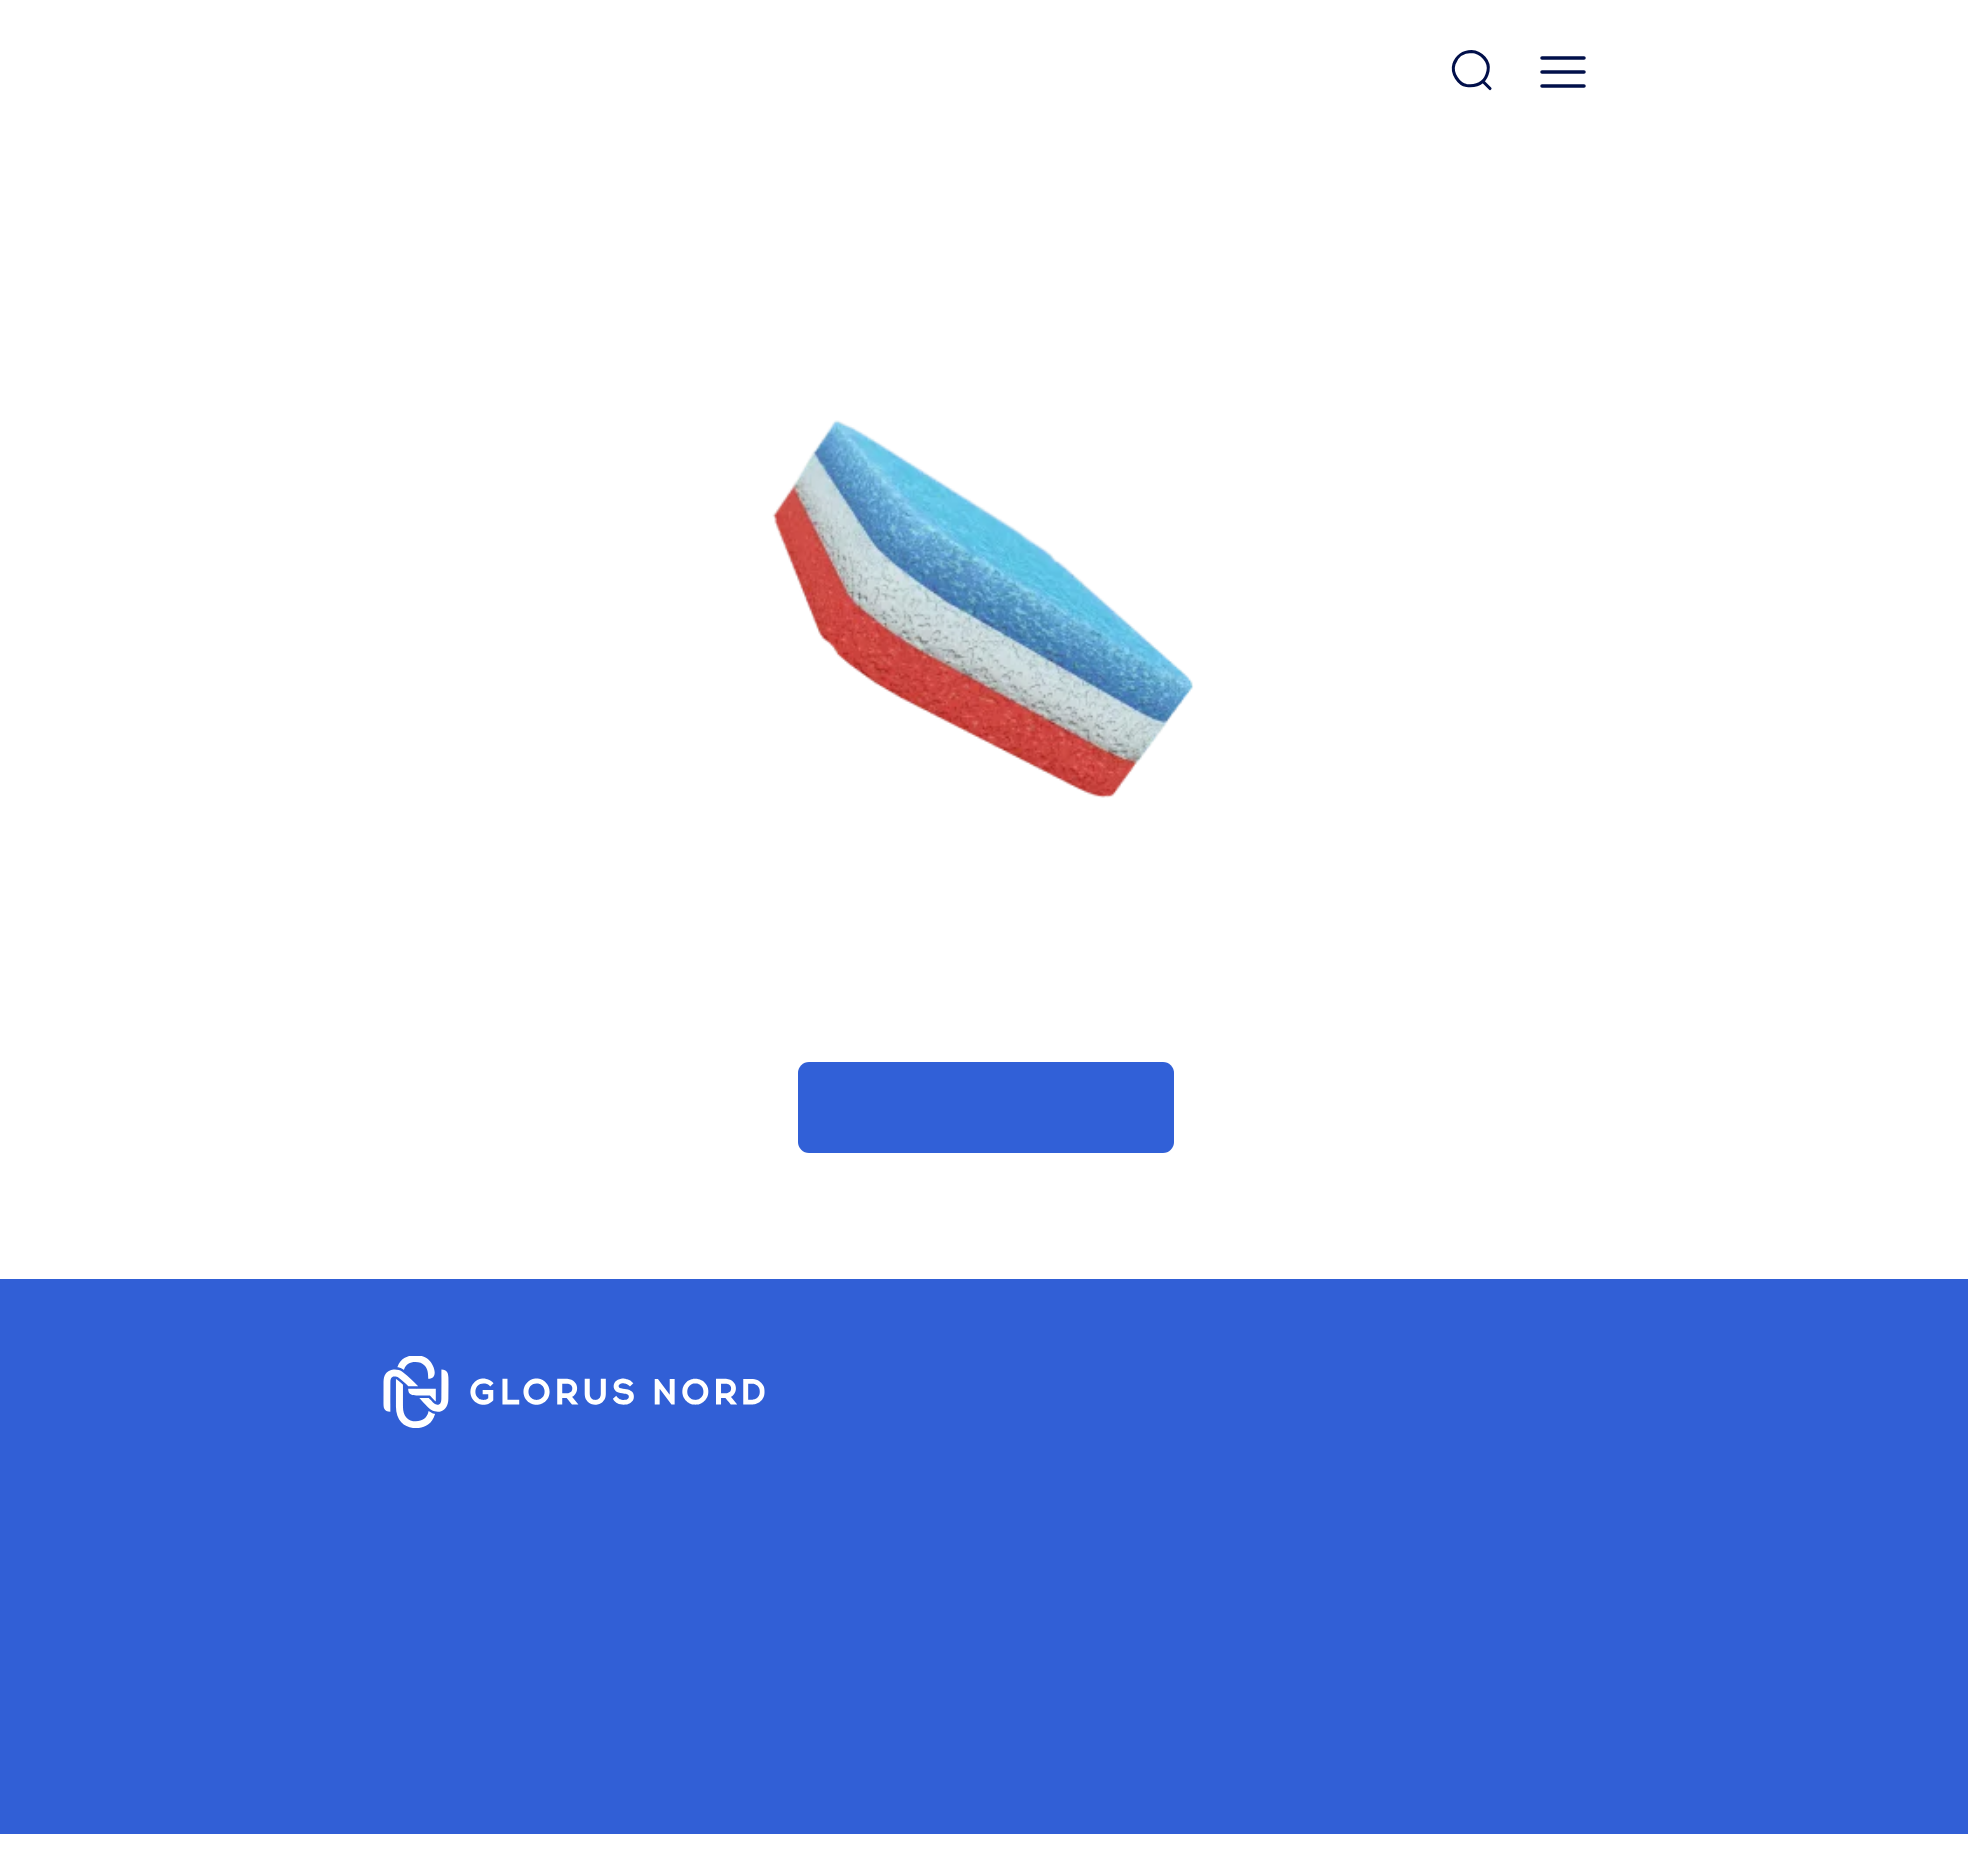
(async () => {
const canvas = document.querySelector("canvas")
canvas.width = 1968
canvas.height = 1853
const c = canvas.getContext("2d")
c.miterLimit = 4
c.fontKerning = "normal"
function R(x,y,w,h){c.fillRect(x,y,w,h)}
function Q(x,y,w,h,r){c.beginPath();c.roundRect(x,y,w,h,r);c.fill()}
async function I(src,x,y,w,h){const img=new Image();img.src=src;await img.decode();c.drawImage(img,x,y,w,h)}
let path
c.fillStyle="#fff"
R(0,0,1968,1853)
path = new Path2D("M1483.5 82l6.5 6.5m-18.5-37c-8.5 0-15 5-17.5 12.5c-3 9.5 5 20.5 12.5 21.5c14 1.5 19.5-5 21.5-14.5c2-9.5-6.5-19-16.5-19.5z")
c.strokeStyle="#010f4a"
c.lineWidth=3.1
c.lineCap="round"
c.stroke(path)
path = new Path2D("M1542 58h42m-42 14h42m-42 14h42")
c.lineWidth=3.5
c.stroke(path)
await I("1.png",772,420,422,378)
c.fillStyle="#3160d7"
Q(798,1062,376,91,11)
c.fillStyle="#315fd6"
R(0,1279,1968,555)
await I("2.png",383,1356,382,72)
})()
